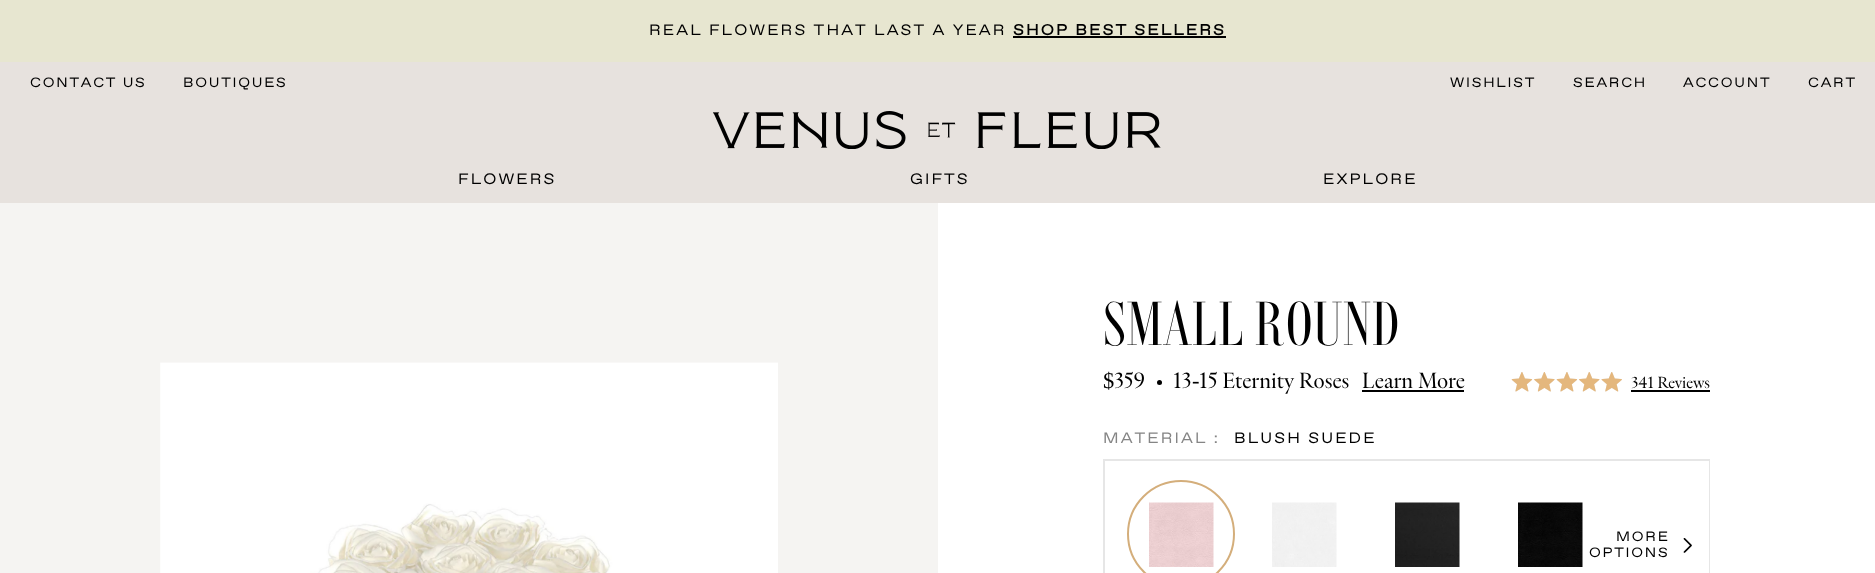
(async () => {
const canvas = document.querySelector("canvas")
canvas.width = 1875
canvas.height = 573
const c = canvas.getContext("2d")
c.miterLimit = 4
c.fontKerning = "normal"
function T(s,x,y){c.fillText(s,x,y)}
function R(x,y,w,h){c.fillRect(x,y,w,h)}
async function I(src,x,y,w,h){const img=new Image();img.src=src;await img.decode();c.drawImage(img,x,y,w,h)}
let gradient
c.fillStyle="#fff"
R(0,0,1875,573)
c.fillStyle="#e7e6d0"
R(0,0,1875,62)
c.letterSpacing="2.1px"
c.font="15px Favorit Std"
c.fillStyle="#000"
T("REAL FLOWERS THAT LAST A YEAR",649,35)
c.font="bold 15px Favorit Std"
T("SHOP BEST SELLERS",1013,35)
R(1013,36,213,2)
c.fillStyle="#e7e2de"
R(0,62,1875,141)
c.letterSpacing="1.75px"
c.font="13.5px Favorit Std"
c.fillStyle="#000"
T("CONTACT US",30,87)
T("BOUTIQUES",183,87)
T("WISHLIST",1450,87)
T("SEARCH",1573,87)
T("ACCOUNT",1683,87)
T("CART",1808,87)
await I("1.png",713,111,448,38)
c.letterSpacing="2.1px"
c.font="15px Favorit Std"
T("FLOWERS",458,184)
T("GIFTS",910,184)
T("EXPLORE",1323,184)
c.fillStyle="#f5f4f2"
R(0,203,938,370)
await I("2.png",160,362,618,211)
c.letterSpacing="0px"
c.font="300 67.5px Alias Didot"
c.fillStyle="#000"
T("SMALL ROUND",1103,345)
c.font="22.5px Liberation Serif"
T("$",1103,388)
c.font="22.5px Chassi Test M"
T("359",1114,388)
c.beginPath()
c.arc(1159.5,382.5,2.5,0,7)
c.fill()
T("13",1173,388)
c.font="22.5px Liberation Serif"
T("-",1192,388)
c.font="22.5px Chassi Test M"
T("15 Eternity Roses",1199,388)
T("Learn More",1362,388)
R(1362,390,102,2)
await I("3.png",1511,372,111,20)
await I("4.png",1511,372,111,20)
c.font="16.5px Chassi Test M"
T("341 Reviews",1631,388)
R(1631,390,79,2)
c.letterSpacing="2.1px"
c.font="15px Favorit Std"
c.fillStyle="#858585"
T("MATERIAL :",1103,443)
c.fillStyle="#000"
T("BLUSH SUEDE",1234,443)
c.strokeStyle="#e6e6e6"
c.lineWidth=2
c.strokeRect(1104,460,605,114)
c.beginPath()
c.arc(1181,534,53,0,7)
c.strokeStyle="#d4ae7b"
c.stroke()
await I("5.png",1149,502,65,65)
await I("6.png",1272,502,65,65)
await I("7.png",1395,502,65,65)
await I("8.png",1518,502,65,65)
gradient = c.createLinearGradient(1709,545,1581,545)
gradient.addColorStop(.55,"#fff")
gradient.addColorStop(.95,"#ffffff00")
c.fillStyle = gradient
R(1708,461,1,112)
c.letterSpacing="1.75px"
c.font="13.5px Favorit Std"
c.fillStyle="#000"
T("MORE",1616,541)
T("OPTIONS",1589,557)
await I("9.png",1683,538,9,15)
})()
